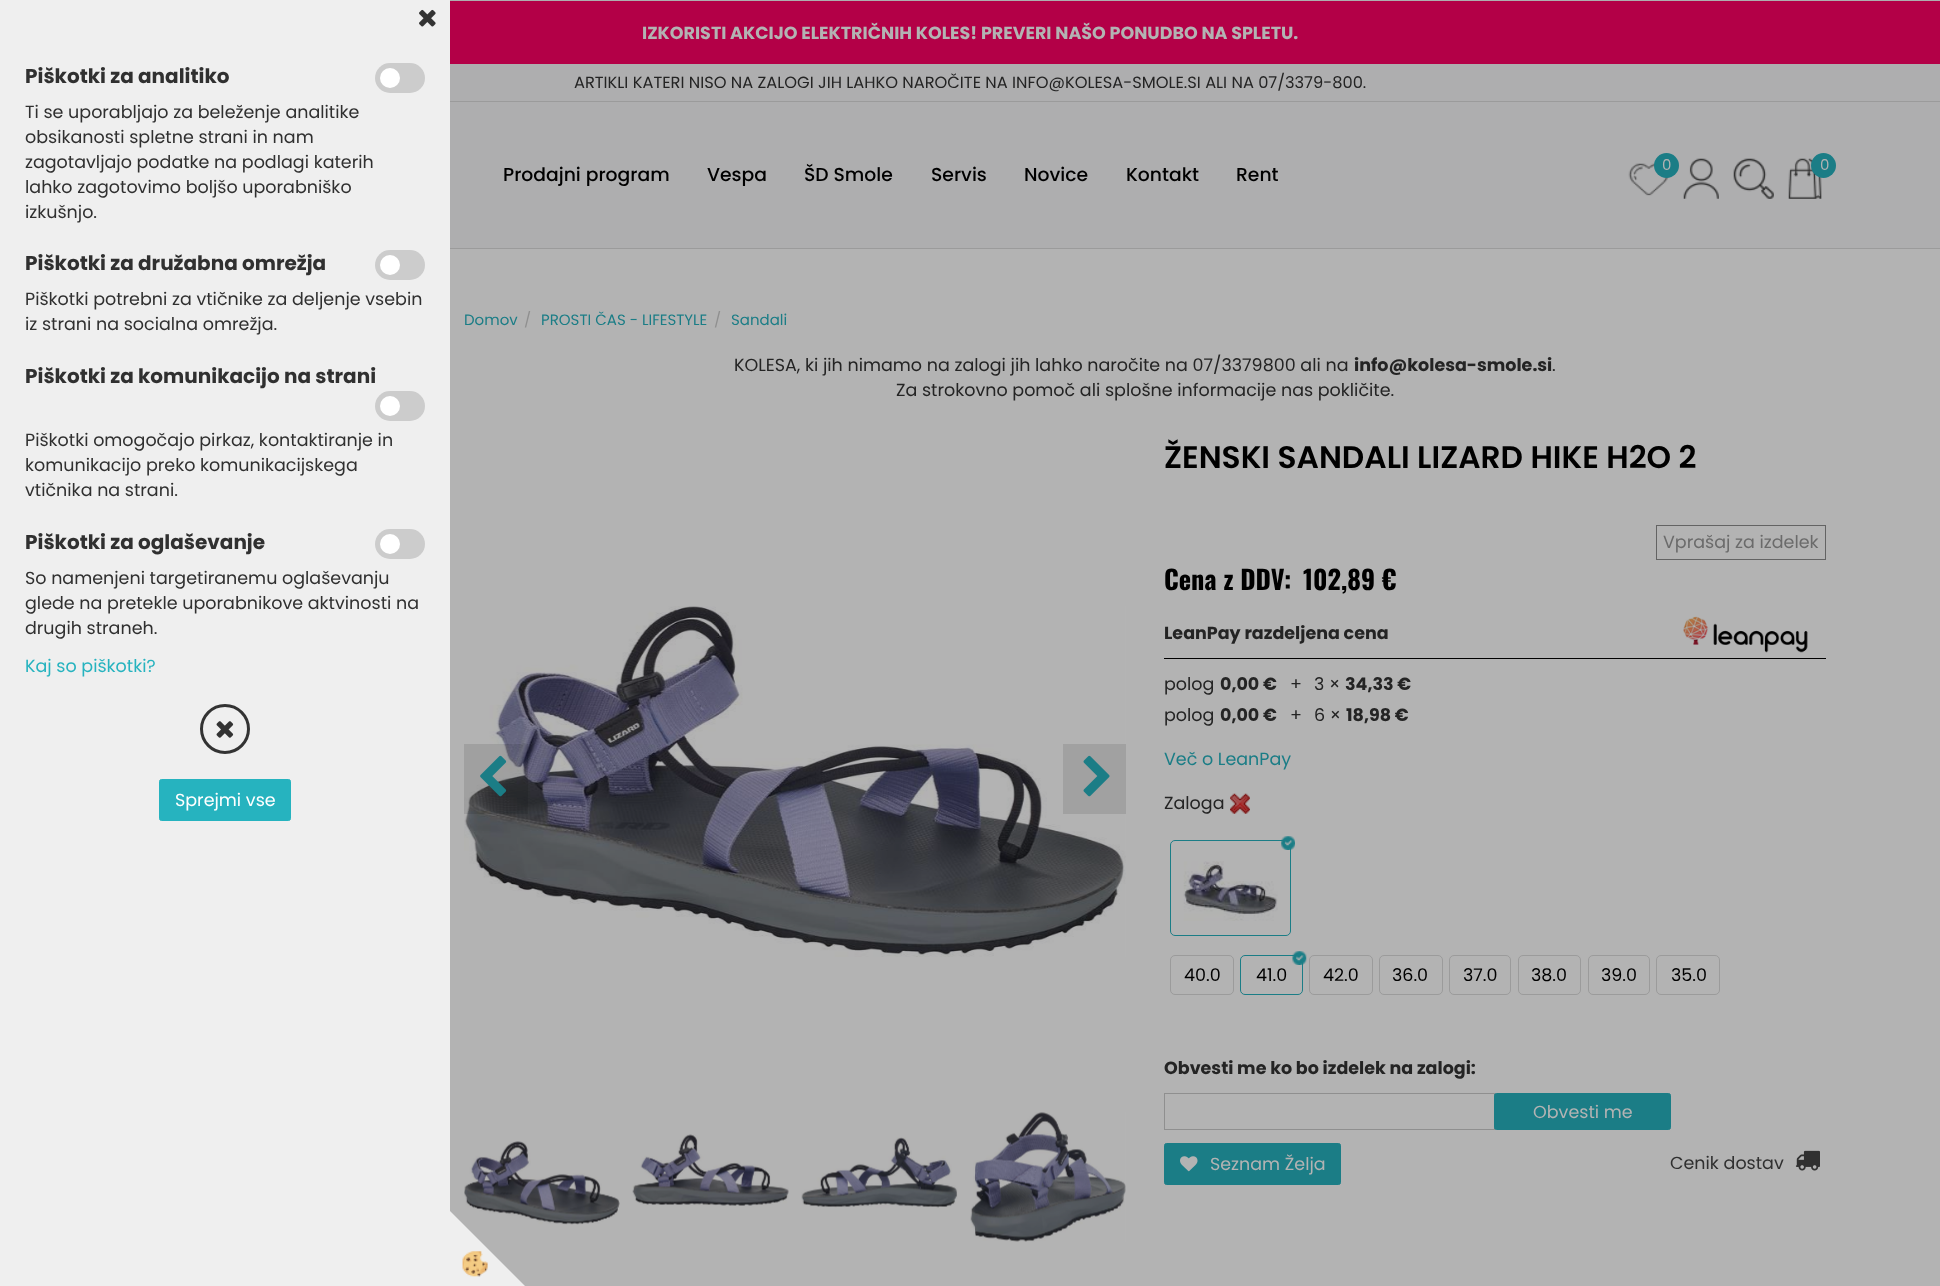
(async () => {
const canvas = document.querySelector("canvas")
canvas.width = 1940
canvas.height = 1286
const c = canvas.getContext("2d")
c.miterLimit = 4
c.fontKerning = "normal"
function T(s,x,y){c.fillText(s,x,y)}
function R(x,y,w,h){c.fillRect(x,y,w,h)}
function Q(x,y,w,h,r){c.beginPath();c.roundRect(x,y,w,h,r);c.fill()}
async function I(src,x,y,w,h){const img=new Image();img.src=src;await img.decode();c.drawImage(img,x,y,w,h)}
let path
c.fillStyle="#b3b3b3"
R(0,0,1940,1286)
c.fillStyle="#efefef"
R(0,0,450,1286)
await I("1.png",419,9,17,18)
c.font="bold 20px Poppins"
c.fillStyle="#303030"
T("Piškotki za analitiko",25,83)
c.fillStyle="#ccc"
Q(375,63,50,30,15)
c.fillStyle="#fff"
c.beginPath()
c.arc(390,78,10,0,7)
c.fill()
c.font="17.5px Poppins"
c.fillStyle="#303030"
T("Ti se uporabljajo za beleženje analitike",25,118)
T("obsikanosti spletne strani in nam",25,143)
T("zagotavljajo podatke na podlagi katerih",25,168)
T("lahko zagotovimo boljšo uporabniško",25,193)
T("izkušnjo.",25,218)
c.font="bold 20px Poppins"
T("Piškotki za družabna omrežja",25,270)
c.fillStyle="#ccc"
Q(375,250,50,30,15)
c.fillStyle="#fff"
c.beginPath()
c.arc(390,265,10,0,7)
c.fill()
c.font="17.5px Poppins"
c.fillStyle="#303030"
T("Piškotki potrebni za vtičnike za deljenje vsebin",25,305)
T("iz strani na socialna omrežja.",25,330)
c.font="bold 20px Poppins"
T("Piškotki za komunikacijo na strani",25,383)
c.fillStyle="#ccc"
Q(375,391,50,30,15)
c.fillStyle="#fff"
c.beginPath()
c.arc(390,406,10,0,7)
c.fill()
c.font="17.5px Poppins"
c.fillStyle="#303030"
T("Piškotki omogočajo pirkaz, kontaktiranje in",25,446)
T("komunikacijo preko komunikacijskega",25,471)
T("vtičnika na strani.",25,496)
c.font="bold 20px Poppins"
T("Piškotki za oglaševanje",25,549)
c.fillStyle="#ccc"
Q(375,529,50,30,15)
c.fillStyle="#fff"
c.beginPath()
c.arc(390,544,10,0,7)
c.fill()
c.font="17.5px Poppins"
c.fillStyle="#303030"
T("So namenjeni targetiranemu oglaševanju",25,584)
T("glede na pretekle uporabnikove aktvinosti na",25,609)
T("drugih straneh.",25,634)
c.fillStyle="#26b3bf"
T("Kaj so piškotki?",25,672)
c.beginPath()
c.arc(225,729,23.5,0,7)
c.strokeStyle="#333"
c.lineWidth=3
c.stroke()
await I("2.png",216,721,18,17)
c.beginPath()
c.roundRect(159.5,779.5,131,41,2)
c.fill()
c.strokeStyle="#26b3bf"
c.lineWidth=1
c.stroke()
c.fillStyle="#fff"
T("Sprejmi vse",175,806)
await I("11.png",464,1141,156,84)
c.fillStyle="#efefef"
path = new Path2D("M525 1286h-75v-75z")
c.fill(path)
await I("3.png",462,1251,26,26)
c.fillStyle="#aeaeaf"
R(450,0,1490,248)
c.fillStyle="#9b9b9b"
R(450,248,1490,1)
c.fillStyle="#b30047"
R(450,1,1490,63)
c.font="bold 17.5px Poppins"
c.fillStyle="#b3b3b3"
T("IZKORISTI AKCIJO ELEKTRIČNIH KOLES! PREVERI NAŠO PONUDBO NA SPLETU.",642,39)
c.fillStyle="#9b9b9b"
R(450,101,1490,1)
c.font="16.25px Poppins"
c.fillStyle="#242424"
T("ARTIKLI KATERI NISO NA ZALOGI JIH LAHKO NAROČITE NA INFO@KOLESA-SMOLE.SI ALI NA 07/3379-800.",574,88)
c.font="500 18.75px Poppins"
c.fillStyle="#000"
T("Prodajni program",503,181)
T("Vespa",707,181)
T("ŠD Smole",804,181)
T("Servis",931,181)
T("Novice",1024,181)
T("Kontakt",1126,181)
T("Rent",1236,181)
await I("4.png",1628,163,41,33)
c.fillStyle="#1b7d86"
c.beginPath()
c.arc(1666.5,165.5,12.5,0,7)
c.fill()
c.font="15px Poppins"
c.fillStyle="#b3b3b3"
T("0",1662,170)
await I("5.png",1683,158,36,41)
await I("6.png",1733,158,41,41)
await I("7.png",1788,158,34,41)
c.fillStyle="#1b7d86"
c.beginPath()
c.arc(1823.5,165.5,12.5,0,7)
c.fill()
c.fillStyle="#b3b3b3"
T("0",1820,170)
c.fillStyle="#1b7d86"
T("Domov",464,325)
c.fillStyle="#8f8f8f"
T("/",524,325)
c.fillStyle="#1b7d86"
T("PROSTI ČAS - LIFESTYLE",541,325)
c.fillStyle="#8f8f8f"
T("/",714,325)
c.fillStyle="#1b7d86"
T("Sandali",731,325)
c.font="17.5px Poppins"
c.fillStyle="#242424"
T("KOLESA, ki jih nimamo na zalogi jih lahko naročite na 07/3379800 ali na",734,371)
c.font="bold 17.5px Poppins"
T("info@kolesa-smole.si",1354,371)
c.font="17.5px Poppins"
T(".",1552,371)
T("Za strokovno pomoč ali splošne informacije nas pokličite.",896,396)
await I("8.png",464,606,662,351)
c.fillStyle="#0000001a"
R(464,744,64,70)
await I("9.png",480,755,27,42)
c.fillStyle="#a1a1a1"
R(1063,744,63,70)
await I("10.png",1083,755,27,42)
await I("12.png",632,1134,157,72)
await I("13.png",801,1137,157,71)
await I("14.png",970,1112,156,130)
c.font="600 31.25px Poppins"
c.fillStyle="#000"
T("ŽENSKI SANDALI LIZARD HIKE H2O 2",1164,468)
c.strokeStyle="#636363"
c.strokeRect(1656.5,525.5,169,34)
c.font="17.5px Poppins"
c.fillStyle="#6b6b6b"
T("Vprašaj za izdelek",1663,548)
c.font="bold 26.25px Oswald"
c.fillStyle="#000"
T("Cena z DDV:",1164,590)
T("102,89 €",1303,590)
R(1164,658,662,1)
c.font="bold 17.5px Poppins"
c.fillStyle="#242424"
T("LeanPay razdeljena cena",1164,639)
await I("15.png",1683,616,125,37)
c.font="17.5px Poppins"
T("polog",1164,690)
c.font="bold 17.5px Poppins"
T("0,00 €",1220,690)
c.font="17.5px Poppins"
T("+",1290,690)
T("3 ×",1314,690)
c.font="bold 17.5px Poppins"
T("34,33 €",1345,690)
c.font="17.5px Poppins"
T("polog",1164,721)
c.font="bold 17.5px Poppins"
T("0,00 €",1220,721)
c.font="17.5px Poppins"
T("+",1290,721)
T("6 ×",1314,721)
c.font="bold 17.5px Poppins"
T("18,98 €",1346,721)
c.font="17.5px Poppins"
c.fillStyle="#1b7d86"
T("Več o LeanPay",1164,765)
c.fillStyle="#242424"
T("Zaloga",1164,809)
await I("16.png",1230,793,20,21)
c.beginPath()
c.roundRect(1170.5,840.5,120,95,4.5)
c.strokeStyle="#1b7d86"
c.stroke()
await I("17.png",1281,836,14,14)
await I("18.png",1183,861,95,60)
c.beginPath()
c.roundRect(1170.5,955.5,63,39,4.5)
c.strokeStyle="#9b9b9b"
c.stroke()
c.fillStyle="#000"
T("40.0",1184,981)
c.beginPath()
c.roundRect(1240.5,955.5,62,39,4.5)
c.strokeStyle="#1b7d86"
c.stroke()
await I("19.png",1292,951,15,14)
T("41.0",1256,981)
c.beginPath()
c.roundRect(1309.5,955.5,63,39,4.5)
c.strokeStyle="#9b9b9b"
c.stroke()
T("42.0",1323,981)
c.beginPath()
c.roundRect(1379.5,955.5,63,39,4.5)
c.stroke()
T("36.0",1392,981)
c.beginPath()
c.roundRect(1449.5,955.5,61,39,4.5)
c.stroke()
T("37.0",1463,981)
c.beginPath()
c.roundRect(1518.5,955.5,62,39,4.5)
c.stroke()
T("38.0",1531,981)
c.beginPath()
c.roundRect(1588.5,955.5,61,39,4.5)
c.stroke()
T("39.0",1601,981)
c.beginPath()
c.roundRect(1656.5,955.5,63,39,4.5)
c.stroke()
T("35.0",1671,981)
c.font="bold 17.5px Poppins"
c.fillStyle="#242424"
T("Obvesti me ko bo izdelek na zalogi:",1164,1074)
c.strokeStyle="#8f8f8f"
c.strokeRect(1164.5,1093.5,330,36)
c.fillStyle="#1b7d86"
c.beginPath()
c.roundRect(1494.5,1093.5,176,36,2)
c.fill()
c.strokeStyle="#1b7d86"
c.stroke()
c.font="17.5px Poppins"
c.fillStyle="#b3b3b3"
T("Obvesti me",1533,1118)
c.fillStyle="#1b7d86"
c.beginPath()
c.roundRect(1164.5,1143.5,176,41,2)
c.fill()
c.stroke()
await I("20.png",1180,1156,18,16)
c.fillStyle="#b3b3b3"
T("Seznam Želja",1210,1170)
c.fillStyle="#303030"
T("Cenik dostav",1670,1169)
await I("21.png",1795,1150,25,21)
})()
